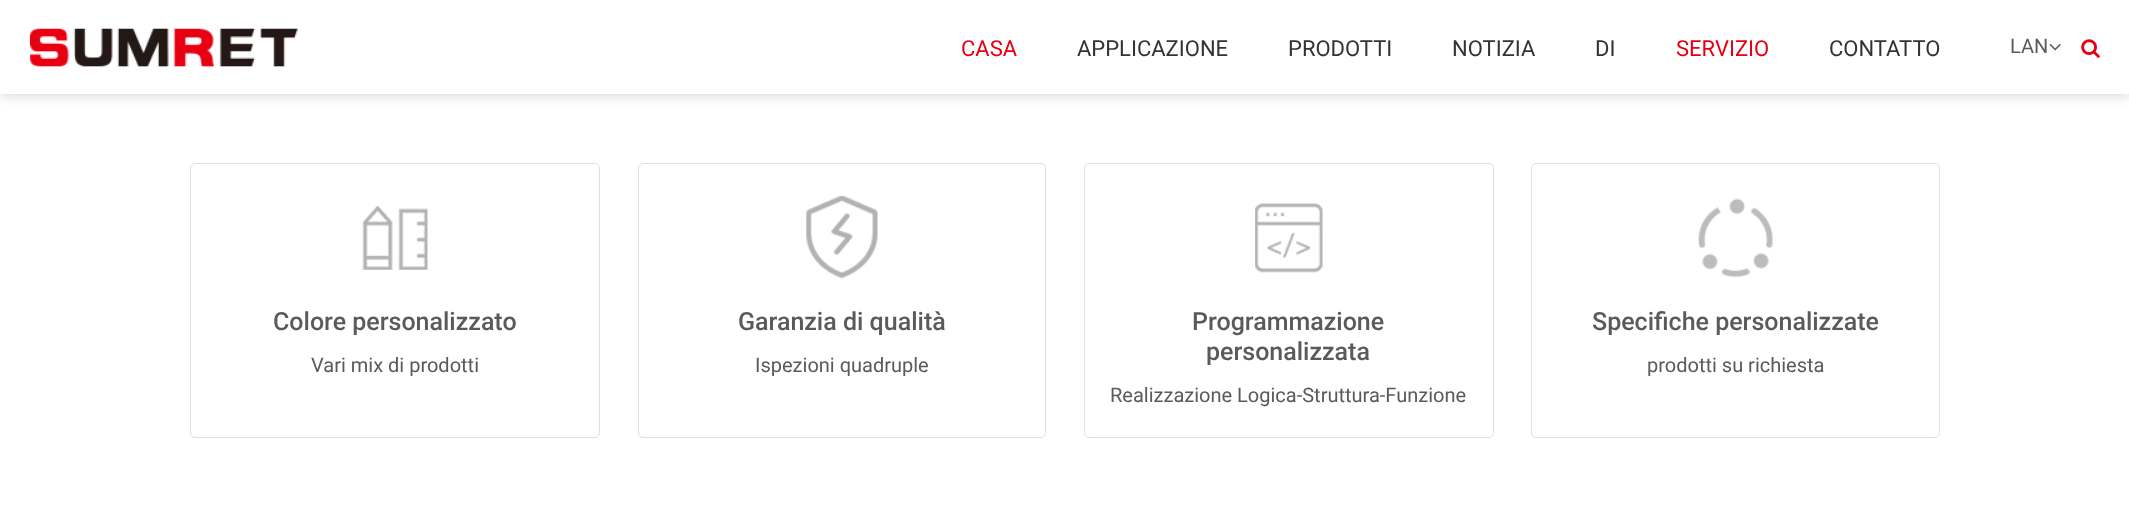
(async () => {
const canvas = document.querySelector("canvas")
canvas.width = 2129
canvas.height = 532
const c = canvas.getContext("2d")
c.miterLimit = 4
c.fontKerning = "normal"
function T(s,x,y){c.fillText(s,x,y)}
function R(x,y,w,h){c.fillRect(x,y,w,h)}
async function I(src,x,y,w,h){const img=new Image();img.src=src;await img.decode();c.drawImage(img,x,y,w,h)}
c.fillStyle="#fff"
R(0,0,2129,532)
c.fillStyle="#00000026"
c.filter="blur(6px)"
c.beginPath()
c.rect(0,3,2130,93)
c.fill()
c.filter="none"
c.fillStyle="#fff"
R(0,0,2129,94)
await I("1.png",30,28,268,39)
c.font="22px Roboto"
c.fillStyle="#e60012"
T("CASA",961,56)
c.fillStyle="#333"
T("APPLICAZIONE",1077,56)
T("PRODOTTI",1288,56)
T("NOTIZIA",1452,56)
T("DI",1595,56)
c.fillStyle="#e60012"
T("SERVIZIO",1676,56)
c.fillStyle="#333"
T("CONTATTO",1829,56)
c.font="20px Roboto"
c.fillStyle="#5a5a5a"
T("LAN",2010,53)
await I("2.png",2049,44,12,7)
await I("3.png",2081,39,19,19)
c.beginPath()
c.roundRect(190.5,163.5,409,274,4.5)
c.strokeStyle="#dfdfdf"
c.stroke()
await I("4.png",362,206,66,64)
c.font="500 25px Roboto"
T("Colore personalizzato",273,330)
c.font="20px Roboto"
T("Vari mix di prodotti",311,372)
c.beginPath()
c.roundRect(638.5,163.5,407,274,4.5)
c.stroke()
await I("5.png",806,196,72,83)
c.font="500 25px Roboto"
T("Garanzia di qualità",738,330)
c.font="20px Roboto"
T("Ispezioni quadruple",755,372)
c.beginPath()
c.roundRect(1084.5,163.5,409,274,4.5)
c.stroke()
await I("6.png",1255,203,68,70)
c.font="500 25px Roboto"
T("Programmazione",1192,330)
T("personalizzata",1206,360)
c.font="20px Roboto"
T("Realizzazione Logica-Struttura-Funzione",1110,402)
c.beginPath()
c.roundRect(1531.5,163.5,408,274,4.5)
c.stroke()
await I("7.png",1698,198,75,80)
c.font="500 25px Roboto"
T("Specifiche personalizzate",1592,330)
c.font="20px Roboto"
T("prodotti su richiesta",1647,372)
})()
